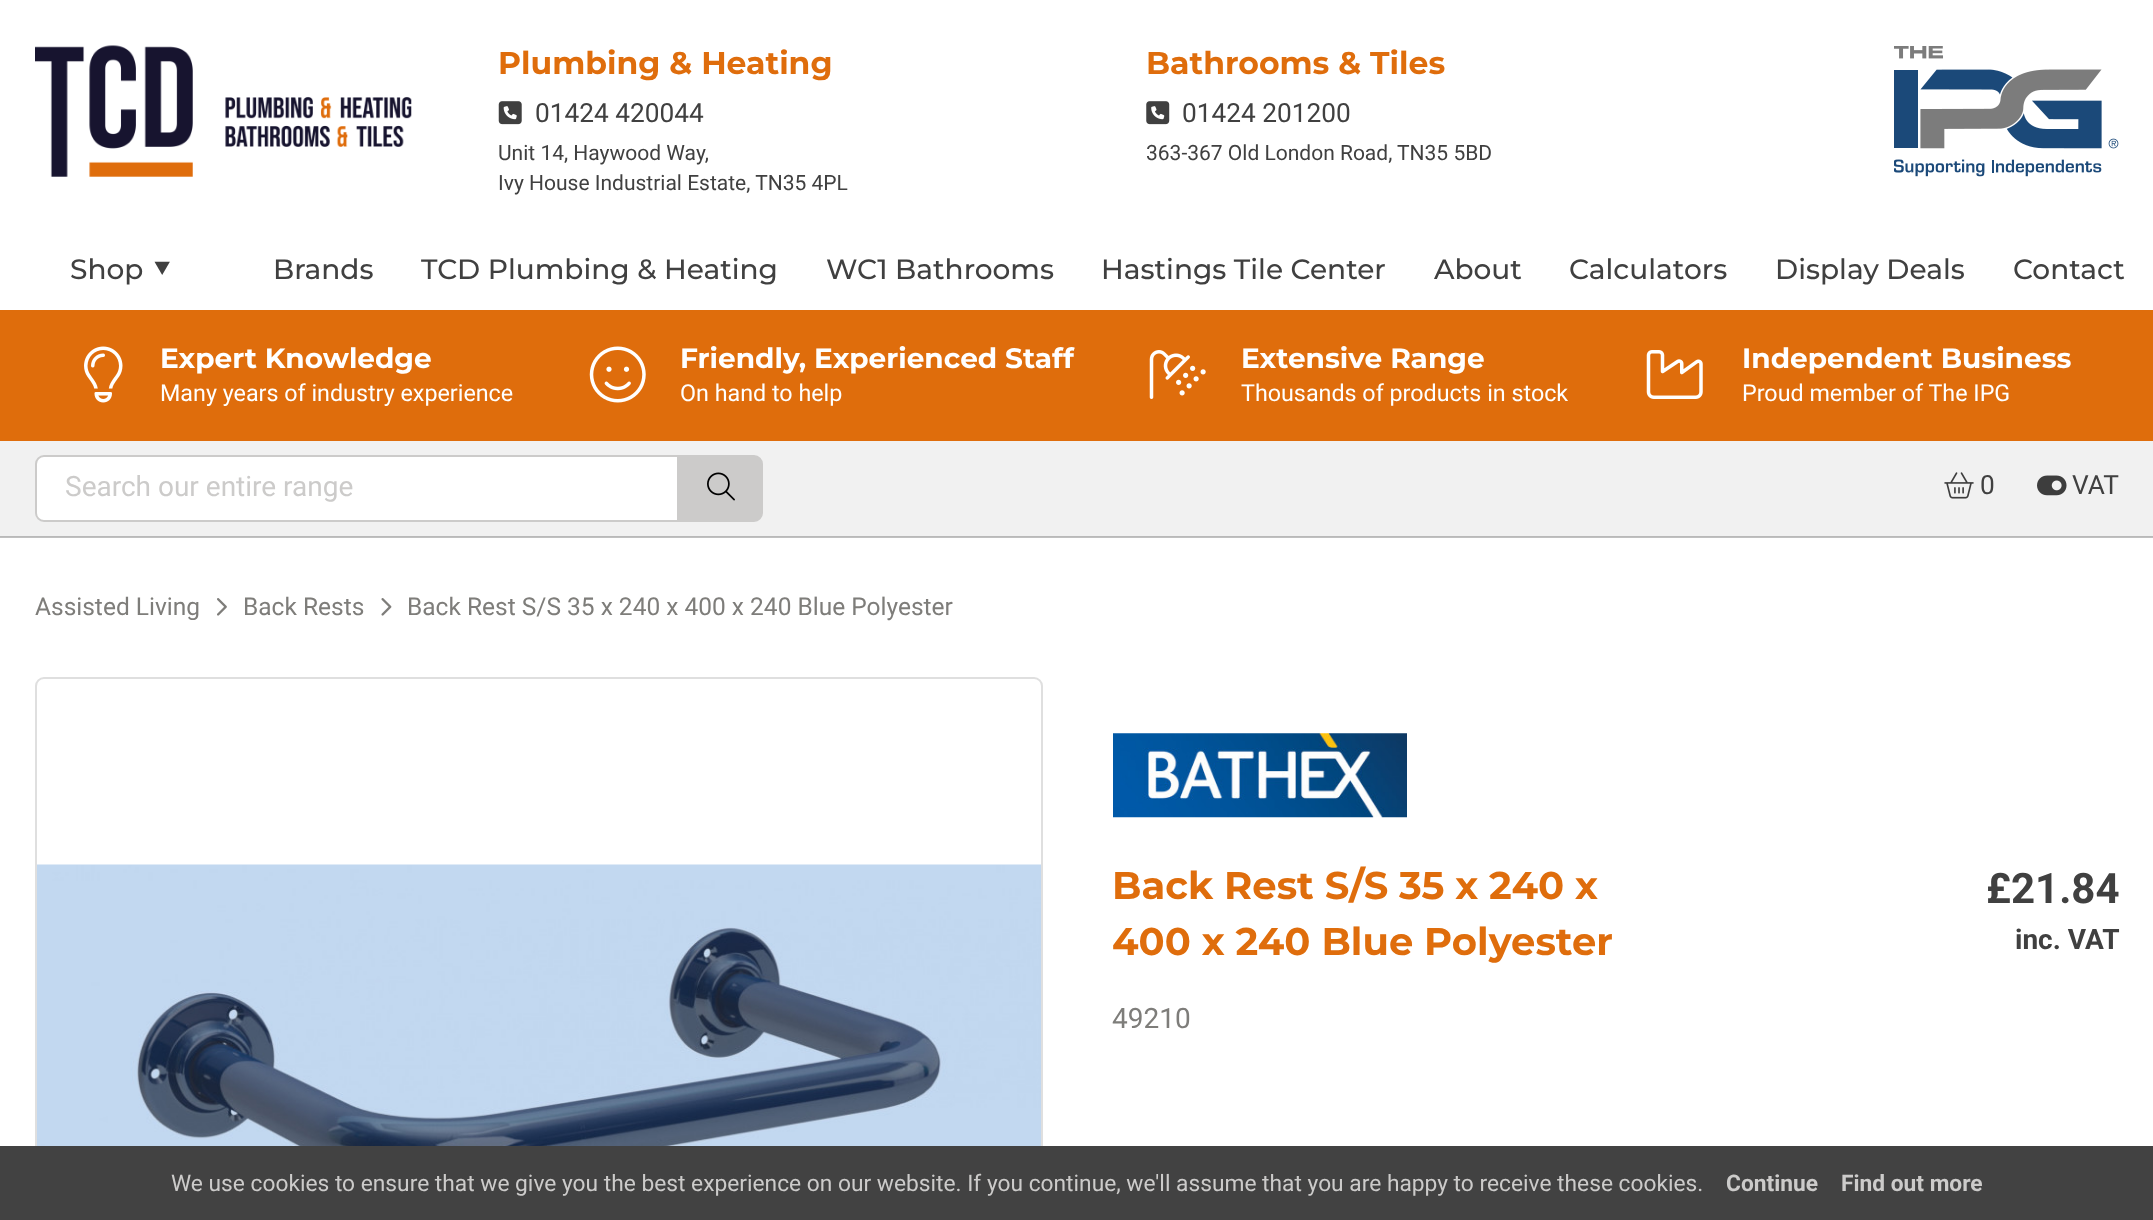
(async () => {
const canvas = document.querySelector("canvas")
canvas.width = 2153
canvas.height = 1220
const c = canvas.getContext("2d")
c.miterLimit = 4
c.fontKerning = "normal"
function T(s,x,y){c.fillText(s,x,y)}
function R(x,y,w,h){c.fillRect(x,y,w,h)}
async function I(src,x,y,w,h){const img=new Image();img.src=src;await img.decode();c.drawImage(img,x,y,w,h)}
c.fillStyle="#fff"
R(0,0,2153,1220)
c.fillStyle="#c0c0c0"
R(0,537,2153,1)
await I("1.png",35,45,377,132)
c.font="bold 31.5px Montserrat"
c.fillStyle="#df6d0c"
T("Plumbing & Heating",498,74)
await I("2.png",498,101,24,24)
c.font="26.25px Roboto"
c.fillStyle="#404040"
T("01424 420044",535,122)
c.font="21px Roboto"
T("Unit 14, Haywood Way,",498,160)
T("Ivy House Industrial Estate, TN35 4PL",498,190)
c.font="bold 31.5px Montserrat"
c.fillStyle="#df6d0c"
T("Bathrooms & Tiles",1146,74)
await I("3.png",1146,101,24,24)
c.font="26.25px Roboto"
c.fillStyle="#404040"
T("01424 201200",1182,122)
c.font="21px Roboto"
T("363-367 Old London Road, TN35 5BD",1146,160)
await I("4.png",1894,46,225,131)
c.font="500 28px Montserrat"
T("Shop",70,279)
c.font="28px FreeSans"
T("⯆",151,279)
c.font="500 28px Montserrat"
T("Brands",273,279)
T("TCD Plumbing & Heating",421,279)
T("WC1 Bathrooms",826,279)
T("Hastings Tile Center",1101,279)
T("About",1434,279)
T("Calculators",1569,279)
T("Display Deals",1775,279)
T("Contact",2013,279)
c.fillStyle="#df6d0c"
R(0,310,2153,131)
await I("5.png",84,346,39,57)
c.font="bold 28px Montserrat"
c.fillStyle="#fff"
T("Expert Knowledge",160,368)
c.font="23.3px Roboto"
T("Many years of industry experience",160,401)
await I("6.png",589,346,57,57)
c.font="bold 28px Montserrat"
T("Friendly, Experienced Staff",680,368)
c.font="23.3px Roboto"
T("On hand to help",680,401)
await I("7.png",1149,350,57,49)
c.font="bold 28px Montserrat"
T("Extensive Range",1241,368)
c.font="23.3px Roboto"
T("Thousands of products in stock",1241,401)
await I("8.png",1646,350,57,49)
c.font="bold 28px Montserrat"
T("Independent Business",1742,368)
c.font="23.3px Roboto"
T("Proud member of The IPG",1742,401)
c.fillStyle="#f1f1f1"
R(0,441,2153,95)
c.fillStyle="#b9b9b9"
R(0,536,2153,1)
c.fillStyle="#fff"
c.beginPath()
c.roundRect(36,456,642,65,[8,0,0,8])
c.fill()
c.strokeStyle="#cccbca"
c.lineWidth=2
c.stroke()
c.font="28px Roboto"
c.fillStyle="#cccbca"
T("Search our entire range",65,496)
c.beginPath()
c.roundRect(680,456,82,65,[0,8,8,0])
c.fill()
c.stroke()
await I("9.png",707,472,28,29)
await I("10.png",1944,472,30,27)
c.font="26.25px Roboto"
c.fillStyle="#404040"
T("0",1980,494)
await I("11.png",2037,475,30,21)
T("VAT",2072,494)
c.font="24.5px Roboto"
c.fillStyle="#7e7d7a"
T("Assisted Living",35,615)
await I("12.png",217,598,10,18)
T("Back Rests",243,615)
await I("13.png",381,598,11,18)
T("Back Rest S/S 35 x 240 x 400 x 240 Blue Polyester",407,615)
c.beginPath()
c.roundRect(36,678,1006,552,8)
c.strokeStyle="#dfdfdf"
c.stroke()
await I("14.png",37,864,1004,282)
await I("15.png",1113,733,294,85)
c.font="bold 38.5px Montserrat"
c.fillStyle="#df6d0c"
T("Back Rest S/S 35 x 240 x",1112,899)
T("400 x 240 Blue Polyester",1112,955)
c.font="28px Roboto"
c.fillStyle="#7e7d7a"
T("49210",1112,1028)
c.font="bold 42px Roboto"
c.fillStyle="#404040"
T("£21.84",1986,903)
c.font="bold 28px Roboto"
T("inc. VAT",2015,949)
c.fillStyle="#424242"
R(0,1146,2153,74)
c.font="22.75px Roboto"
c.fillStyle="#cccbca"
T("We use cookies to ensure that we give you the best experience on our website. If you continue, we'll assume that you are happy to receive these cookies.",171,1191)
c.font="bold 22.75px Roboto"
T("Continue",1726,1191)
T("Find out more",1841,1191)
})()
